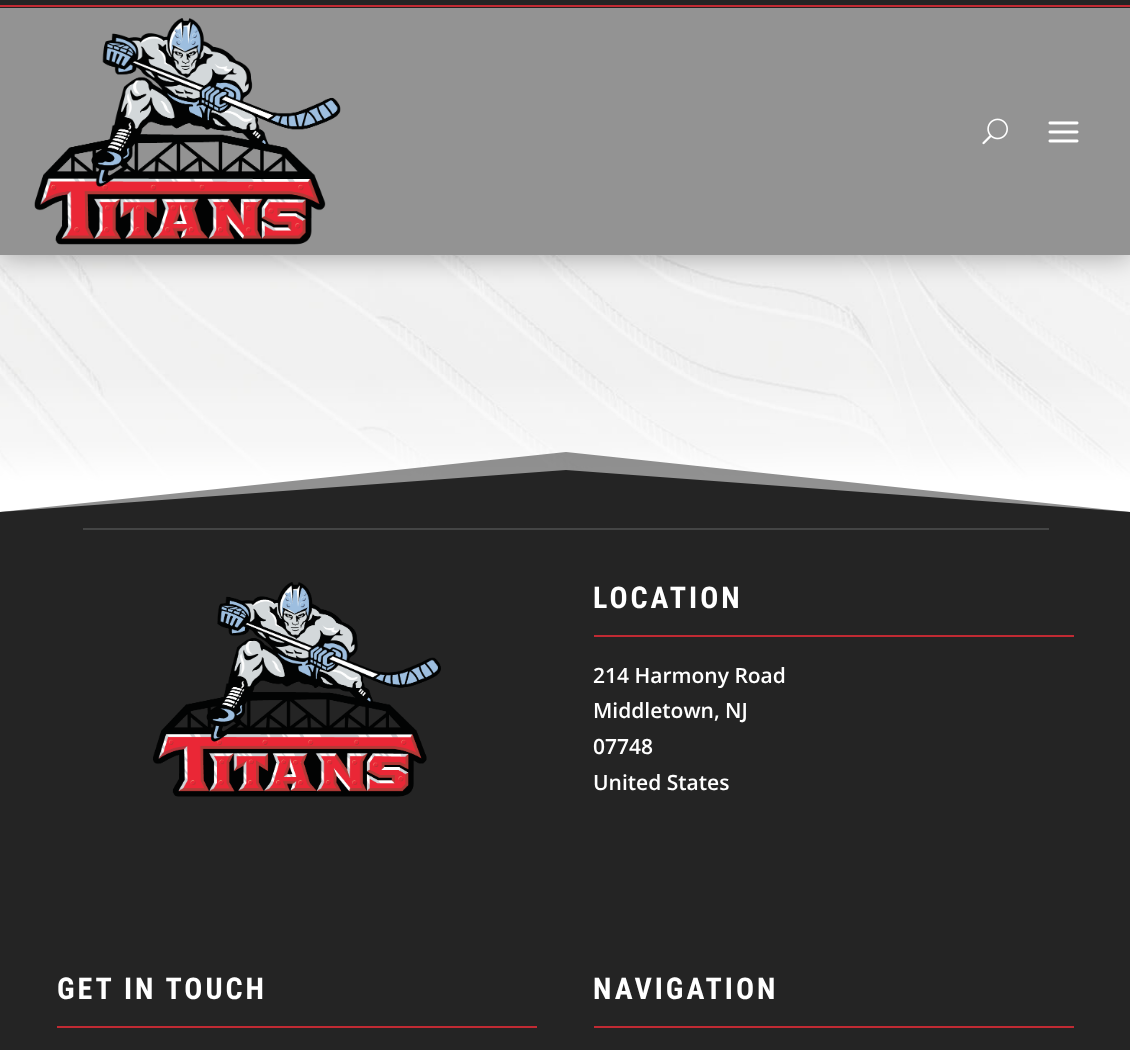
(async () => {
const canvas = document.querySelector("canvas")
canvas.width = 1130
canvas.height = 1050
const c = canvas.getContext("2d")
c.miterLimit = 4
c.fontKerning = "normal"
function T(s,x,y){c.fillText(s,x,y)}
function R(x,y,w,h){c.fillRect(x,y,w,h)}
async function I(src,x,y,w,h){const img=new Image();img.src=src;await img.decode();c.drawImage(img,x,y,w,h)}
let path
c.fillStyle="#fff"
R(0,0,1130,1050)
await I("4.png",0,255,1130,227)
c.fillStyle="#0000004d"
c.filter="blur(13.5px)"
c.beginPath()
c.rect(0,3,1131,255)
c.fill()
c.filter="none"
c.fillStyle="#242424"
R(0,0,1130,8)
c.fillStyle="#c12a33"
R(0,5,1130,2)
c.fillStyle="#939393"
R(0,8,1130,247)
await I("1.png",34,18,307,227)
await I("2.png",982,118,26,27)
await I("3.png",1048,121,31,22)
c.fillStyle="#24242480"
path = new Path2D("M566 452l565 60h-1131z")
c.fill(path)
c.fillStyle="#242424"
path = new Path2D("M566 470l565 42h-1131z")
c.fill(path)
R(0,512,1130,538)
c.fillStyle="#444545"
R(83,528,966,2)
await I("5.png",153,582,288,215)
c.letterSpacing="3px"
c.font="bold 30px Roboto Condensed"
c.fillStyle="#fff"
T("LOCATION",593,608)
c.fillStyle="#c12a33"
R(594,635,480,2)
c.letterSpacing="0px"
c.font="600 21px Open Sans"
c.fillStyle="#fff"
T("214 Harmony Road",593,683)
T("Middletown, NJ",593,718)
T("07748",593,754)
T("United States",593,790)
c.letterSpacing="3px"
c.font="bold 30px Roboto Condensed"
T("GET IN TOUCH",57,999)
c.fillStyle="#c12a33"
R(57,1026,480,2)
c.fillStyle="#fff"
T("NAVIGATION",593,999)
c.fillStyle="#c12a33"
R(594,1026,480,2)
})()
